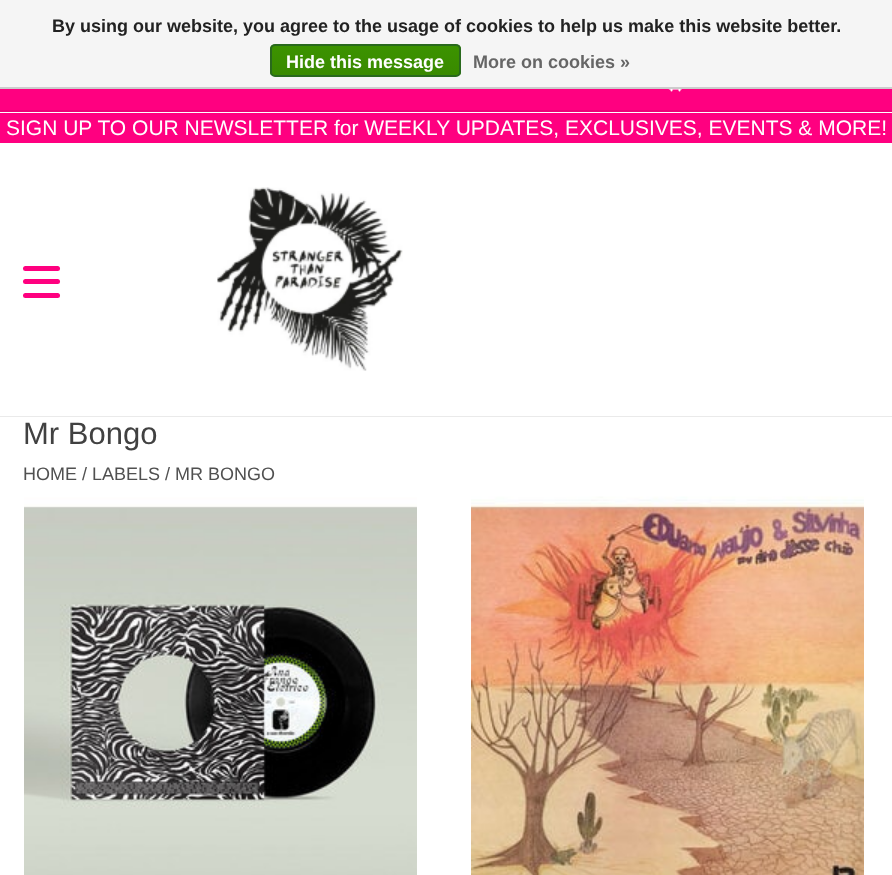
(async () => {
const canvas = document.querySelector("canvas")
canvas.width = 892
canvas.height = 875
const c = canvas.getContext("2d")
c.miterLimit = 4
c.fontKerning = "normal"
function T(s,x,y){c.fillText(s,x,y)}
function R(x,y,w,h){c.fillRect(x,y,w,h)}
function Q(x,y,w,h,r){c.beginPath();c.roundRect(x,y,w,h,r);c.fill()}
async function I(src,x,y,w,h){const img=new Image();img.src=src;await img.decode();c.drawImage(img,x,y,w,h)}
let gradient
c.fillStyle="#fff"
R(0,0,892,875)
c.fillStyle="#f5f5f5"
R(0,0,892,87)
c.fillStyle="#ccc"
R(0,87,892,2)
c.font="bold 18px Liberation Sans"
c.fillStyle="#222"
T("By using our website, you agree to the usage of cookies to help us make this website better.",52,32)
c.save()
c.beginPath()
c.roundRect(270,44,191,33,5)
c.clip()
gradient = c.createLinearGradient(365,45,365,75)
gradient.addColorStop(0,"#3c9300")
gradient.addColorStop(1,"#398a00")
c.fillStyle = gradient
R(270,45,191,30)
c.restore()
c.beginPath()
c.roundRect(271,45,189,31,4)
c.strokeStyle="#29691d"
c.lineWidth=2
c.stroke()
c.fillStyle="#fff"
T("Hide this message",286,68)
c.fillStyle="#666"
T("More on cookies »",473,68)
c.fillStyle="#ff0080"
R(0,89,892,21)
c.fillStyle="#ed0077"
R(0,110,892,2)
await I("1.png",668,89,14,3)
c.fillStyle="#ff0080"
R(0,113,892,30)
c.font="21px Liberation Sans"
c.fillStyle="#fff"
T("SIGN UP TO OUR NEWSLETTER for WEEKLY UPDATES, EXCLUSIVES, EVENTS & MORE!",6,135)
c.fillStyle="#eaeaea"
R(0,416,892,1)
await I("2.png",217,187,186,184)
c.fillStyle="#ff007f"
Q(23,266,37,5,2.5)
Q(23,279,37,5,2.5)
Q(23,293,37,5,2.5)
c.font="31px Liberation Sans"
c.fillStyle="#414141"
T("Mr Bongo",23,444)
c.font="18px Liberation Sans"
c.fillStyle="#505050"
T("HOME / LABELS / MR BONGO",23,480)
await I("3.png",24,497,393,378)
await I("4.png",471,496,393,379)
})()
